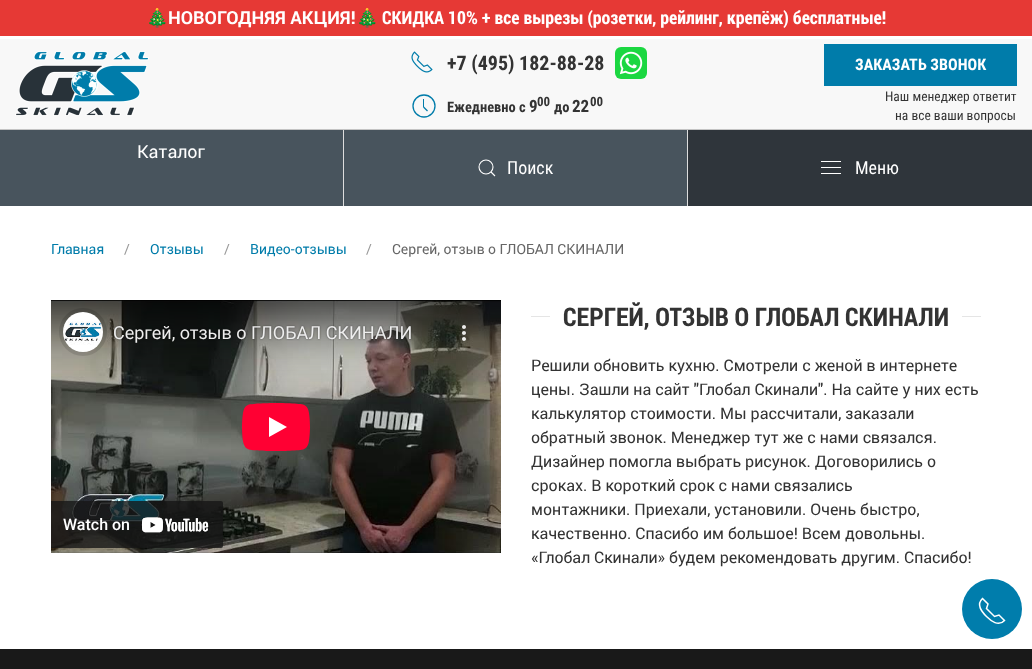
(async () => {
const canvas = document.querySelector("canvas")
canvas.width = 1032
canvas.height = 669
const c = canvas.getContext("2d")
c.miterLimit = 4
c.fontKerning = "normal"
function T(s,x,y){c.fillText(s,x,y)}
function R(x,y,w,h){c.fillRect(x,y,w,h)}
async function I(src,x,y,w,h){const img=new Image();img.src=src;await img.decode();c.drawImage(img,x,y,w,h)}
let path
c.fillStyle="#fff"
R(0,0,1032,669)
c.fillStyle="#e63935"
R(0,0,1032,36)
c.font="18px Noto Color Emoji"
c.fillStyle="#fff"
T("🎄",146,24)
c.font="bold 18px Roboto"
T("НОВОГОДНЯЯ АКЦИЯ!",168,24)
c.font="18px Noto Color Emoji"
T("🎄",356,24)
c.font="bold 18px Roboto Condensed"
T("СКИДКА 10% + все вырезы (розетки, рейлинг, крепёж) бесплатные!",382,24)
c.fillStyle="#f8f8f8"
R(0,39,1032,90)
c.fillStyle="#c4c4c4"
R(0,129,1032,1)
await I("1.png",15,51,134,65)
await I("2.png",411,51,22,22)
c.font="bold 20px 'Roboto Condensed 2'"
c.fillStyle="#333"
T("+7 (495) 182-88-28",447,70)
await I("3.png",615,47,32,32)
c.beginPath()
c.arc(424,106,11,0,7)
c.strokeStyle="#007caa"
c.lineWidth=1.3
c.stroke()
c.fillStyle="#007caa"
R(423,99,1,8)
path = new Path2D("M427.5 111l-4-4")
c.stroke(path)
c.font="bold 14.5px 'Roboto Condensed 2'"
c.fillStyle="#333"
T("Ежедневно с",447,112)
c.font="bold 17px 'Roboto Condensed 2'"
T("9",529,112)
c.font="bold 13px 'Roboto Condensed 2'"
T("00",537,106)
c.font="bold 14.5px 'Roboto Condensed 2'"
T("до",554,112)
c.font="bold 17px 'Roboto Condensed 2'"
T("22",572,112)
c.font="bold 13px 'Roboto Condensed 2'"
T("00",590,106)
c.fillStyle="#007caa"
R(824,44,193,42)
c.font="bold 16px 'Roboto Condensed 2'"
c.fillStyle="#fff"
T("ЗАКАЗАТЬ ЗВОНОК",855,70)
c.font="13.5px Roboto Condensed"
c.fillStyle="#333"
T("Наш менеджер ответит",885,101)
T("на все ваши вопросы",895,120)
c.fillStyle="#48545d"
R(0,130,687,76)
c.fillStyle="#ddd"
R(343,130,1,76)
c.font="18px Roboto"
c.fillStyle="#fff"
T("Каталог",137,158)
c.fillStyle="#ddd"
R(687,130,1,76)
c.beginPath()
c.arc(486,167,7,0,7)
c.strokeStyle="#fff"
c.lineWidth=1.1
c.stroke()
path = new Path2D("M491 172l4 4z")
c.stroke(path)
c.font="18px Roboto Condensed"
c.fillStyle="#fff"
T("Поиск",507,174)
c.fillStyle="#2f353b"
R(688,130,344,76)
c.fillStyle="#fff"
R(821,161,20,1)
R(821,167,20,1)
R(821,173,20,1)
T("Меню",855,174)
c.font="14px Roboto"
c.fillStyle="#007caa"
T("Главная",51,254)
c.fillStyle="#999"
T("/",124,254)
c.fillStyle="#007caa"
T("Отзывы",150,254)
c.fillStyle="#999"
T("/",224,254)
c.fillStyle="#007caa"
T("Видео-отзывы",250,254)
c.fillStyle="#999"
T("/",366,254)
c.fillStyle="#666"
T("Сергей, отзыв о ГЛОБАЛ СКИНАЛИ",392,254)
await I("4.png",51,300,450,253)
c.fillStyle="#e5e5e5"
R(531,316,19,1)
c.font="bold 25.6px Roboto Condensed"
c.fillStyle="#333"
T("СЕРГЕЙ, ОТЗЫВ О ГЛОБАЛ СКИНАЛИ",563,326)
c.fillStyle="#e5e5e5"
R(962,316,19,1)
c.font="16px Roboto"
c.fillStyle="#333"
T("Решили обновить кухню. Смотрели с женой в интернете",531,371)
T("цены. Зашли на сайт \"Глобал Скинали\". На сайте у них есть",531,395)
T("калькулятор стоимости. Мы рассчитали, заказали",531,419)
T("обратный звонок. Менеджер тут же с нами связался.",531,443)
T("Дизайнер помогла выбрать рисунок. Договорились о",531,467)
T("сроках. В короткий срок с нами связались",531,491)
T("монтажники. Приехали, установили. Очень быстро,",531,515)
T("качественно. Спасибо им большое! Всем довольны.",531,539)
T("«Глобал Скинали» будем рекомендовать другим. Спасибо!",531,563)
c.fillStyle="#007dac"
c.beginPath()
c.arc(992,609,30,0,7)
c.fill()
path = new Path2D("M986.5 616.5c4.5 4.5 12 10.5 18 4l-5.5-5.5l-4.5 1.5l-8-8l1.5-4.5l-5.5-5.5c-6.5 6-1 13 4 18")
c.lineWidth=1.5
c.stroke(path)
c.fillStyle="#191919"
R(0,649,1032,20)
})()
